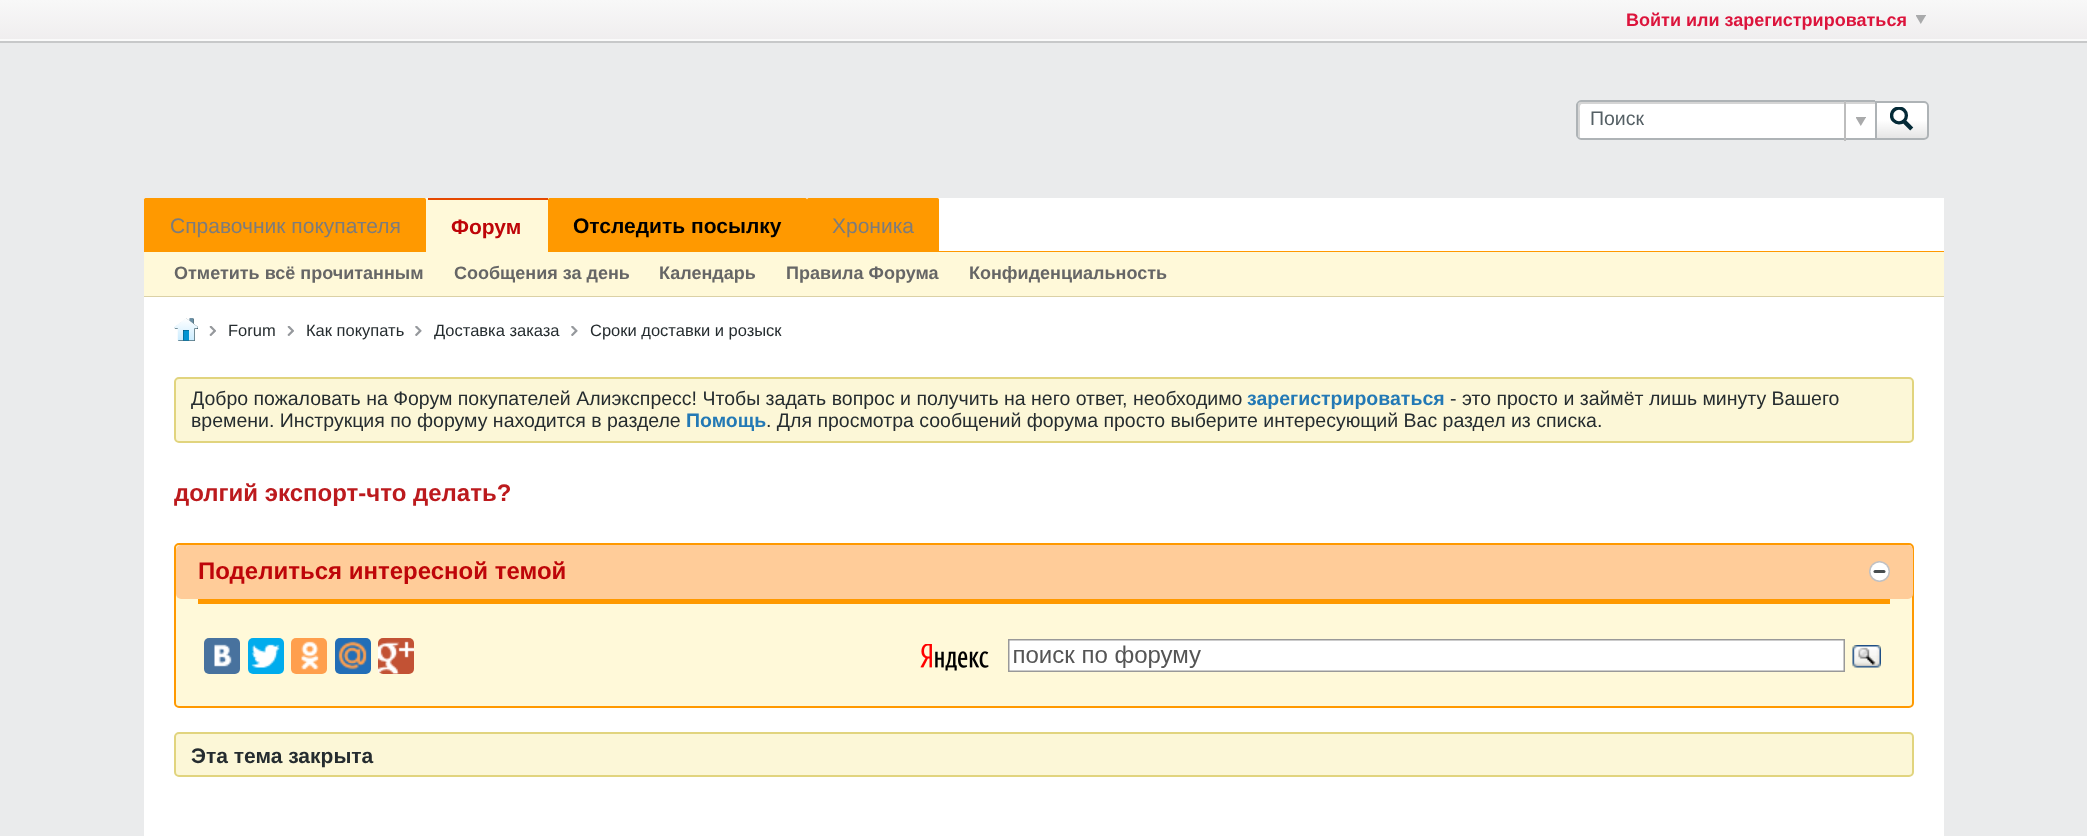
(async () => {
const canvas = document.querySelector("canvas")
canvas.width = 2087
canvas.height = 836
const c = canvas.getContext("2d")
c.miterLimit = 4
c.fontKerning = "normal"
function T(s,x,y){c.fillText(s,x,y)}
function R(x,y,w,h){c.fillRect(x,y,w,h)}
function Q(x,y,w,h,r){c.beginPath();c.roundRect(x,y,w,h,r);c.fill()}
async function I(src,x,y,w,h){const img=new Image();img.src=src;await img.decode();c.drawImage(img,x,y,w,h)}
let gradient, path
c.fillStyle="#eaebec"
R(0,0,2087,836)
gradient = c.createLinearGradient(1044,0,1044,42)
gradient.addColorStop(0,"#f8f8f8")
gradient.addColorStop(1,"#efedee")
c.fillStyle = gradient
R(0,0,2087,39)
c.font="bold 18px Liberation Sans"
c.fillStyle="#dc143c"
T("Войти или зарегистрироваться",1626,26)
await I("1.png",1916,15,10,9)
c.fillStyle="#fafafa"
R(0,39,2087,2)
c.fillStyle="#c7c8c9"
R(0,41,2087,2)
c.fillStyle="#fff"
c.beginPath()
c.roundRect(1577,101,298,39,[5,0,0,5])
c.fill()
c.fillStyle="#d5d5d5"
path = new Path2D("M1582 104h293v-2h-294c-2 0-3 1-3 3v30c0 1 1 3 2 3v-27c0-1-1-7 2-7z")
c.fill(path)
c.fillStyle="#aeb3b6"
path = new Path2D("M1581 100h294v40h-294c-2 0-5-3-5-5v-30c0-2 3-5 5-5zm0 2h294v36h-294c-2 0-3-1-3-3v-30c0-2 1-3 3-3z")
c.fill(path,"evenodd")
c.font="19.5px Liberation Sans"
c.fillStyle="#556065"
T("Поиск",1590,125)
c.fillStyle="#bdbdbd"
R(1844,101,2,40)
await I("2.png",1856,117,10,9)
c.fillStyle="#fff"
c.beginPath()
c.roundRect(1875,101,54,39,[0,5,5,0])
c.fill()
c.save()
c.beginPath()
c.roundRect(1875,101,54,39,[0,5,5,0])
c.clip()
gradient = c.createLinearGradient(1902,138,1902,102)
gradient.addColorStop(0,"#0000001a")
gradient.addColorStop(.5,"#00000000")
gradient.addColorStop(.5,"#ffffff00")
gradient.addColorStop(1,"#ffffffb3")
c.fillStyle = gradient
R(1877,102,52,36)
c.restore()
c.beginPath()
c.roundRect(1876,102,52,37,[0,4,4,0])
c.strokeStyle="#aeb3b6"
c.lineWidth=2
c.stroke()
await I("3.png",1890,107,24,24)
R(144,198,1800,53)
c.fillStyle="#f90"
R(144,251,1800,1)
c.beginPath()
c.roundRect(144,198,282,53,[1.5,1.5,0,0])
c.fill()
c.font="21px Liberation Sans"
c.fillStyle="#7c7c7c"
T("Справочник покупателя",170,233)
c.fillStyle="#fff9d9"
c.beginPath()
c.roundRect(426,198,122,54,[1.5,1.5,0,0])
c.fill()
c.fillStyle="#e54800"
R(428,198,120,2)
c.font="bold 21px Liberation Sans"
c.fillStyle="#be0509"
T("Форум",451,234)
c.fillStyle="#f90"
c.beginPath()
c.roundRect(548,198,259,53,[1.5,1.5,0,0])
c.fill()
c.fillStyle="#000"
T("Отследить посылку",573,233)
c.fillStyle="#f90"
c.beginPath()
c.roundRect(807,198,132,53,[1.5,1.5,0,0])
c.fill()
c.font="21px Liberation Sans"
c.fillStyle="#7c7c7c"
T("Хроника",832,233)
c.fillStyle="#fff9d9"
R(144,252,1800,44)
c.fillStyle="#dbd1a6"
R(144,296,1800,1)
c.font="bold 18px Liberation Sans"
c.fillStyle="#666"
T("Отметить всё прочитанным",174,279)
T("Сообщения за день",454,279)
T("Календарь",659,279)
T("Правила Форума",786,279)
T("Конфиденциальность",969,279)
c.fillStyle="#fff"
R(144,297,1800,539)
await I("4.png",174,318,24,23)
await I("5.png",209,326,7,10)
c.font="16.5px Liberation Sans"
c.fillStyle="#252c2f"
T("Forum",228,336)
await I("5.png",287,326,7,10)
T("Как покупать",306,336)
await I("6.png",415,326,7,10)
T("Доставка заказа",434,336)
await I("6.png",571,326,7,10)
T("Сроки доставки и розыск",590,336)
c.fillStyle="#fcf7d7"
c.beginPath()
c.roundRect(175,378,1738,64,4)
c.fill()
c.strokeStyle="#e1d47e"
c.stroke()
c.font="19.5px Liberation Sans"
c.fillStyle="#252c2f"
T("Добро пожаловать на Форум покупателей Алиэкспресс! Чтобы задать вопрос и получить на него ответ, необходимо",191,405)
c.font="bold 19.5px Liberation Sans"
c.fillStyle="#2379b5"
T("зарегистрироваться",1247,405)
c.font="19.5px Liberation Sans"
c.fillStyle="#252c2f"
T("- это просто и займёт лишь минуту Вашего",1450,405)
T("времени. Инструкция по форуму находится в разделе",191,427)
c.font="bold 19.5px Liberation Sans"
c.fillStyle="#2379b5"
T("Помощь",686,427)
c.font="19.5px Liberation Sans"
c.fillStyle="#252c2f"
T(". Для просмотра сообщений форума просто выберите интересующий Вас раздел из списка.",766,427)
c.font="bold 24px Liberation Sans"
c.fillStyle="#bc1a1d"
T("долгий экспорт-что делать?",174,501)
c.fillStyle="#fff9d9"
c.beginPath()
c.roundRect(175,544,1738,163,4)
c.fill()
c.strokeStyle="#f90"
c.stroke()
c.fillStyle="#fc9"
Q(176,545,1737,54,5)
c.fillStyle="#be0509"
T("Поделиться интересной темой",198,579)
await I("7.png",1869,561,21,21)
c.fillStyle="#f90"
R(198,599,1692,5)
c.fillStyle="#48729e"
Q(204,638,36,36,5)
await I("8.png",214,644,18,23)
c.fillStyle="#00aced"
Q(248,638,36,36,5)
await I("9.png",251,644,29,24)
c.fillStyle="#ff9f4d"
Q(291,638,36,36,5)
await I("10.png",301,641,18,29)
c.fillStyle="#226eb7"
Q(335,638,36,36,5)
await I("11.png",338,641,29,29)
c.fillStyle="#c25234"
Q(378,638,36,36,5)
await I("12.png",378,641,36,33)
await I("13.png",920,644,69,27)
await I("14.png",1008,639,873,33)
c.fillStyle="#fcf7d7"
c.beginPath()
c.roundRect(175,733,1738,43,4)
c.fill()
c.strokeStyle="#e1d47e"
c.stroke()
c.font="bold 21px Liberation Sans"
c.fillStyle="#252c2f"
T("Эта тема закрыта",191,763)
})()
